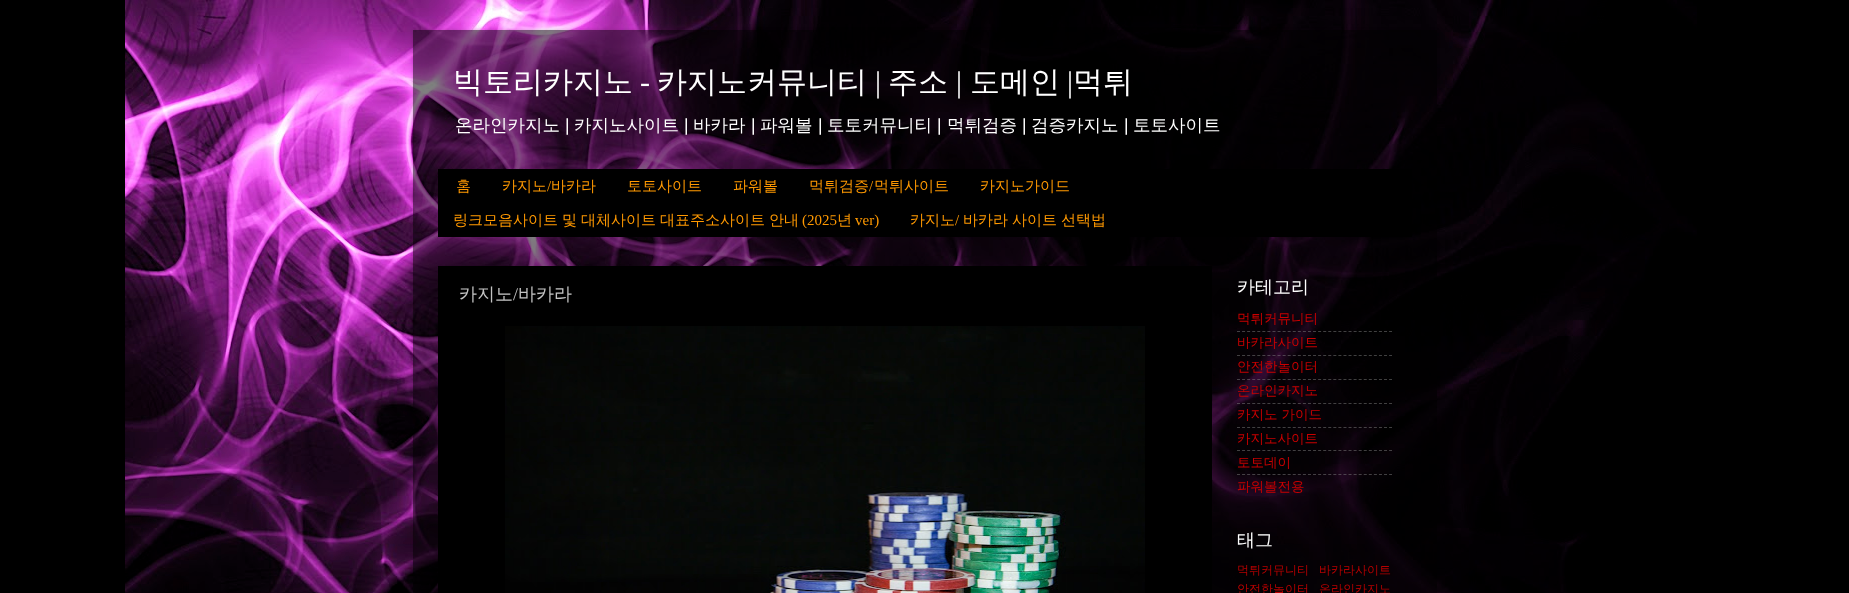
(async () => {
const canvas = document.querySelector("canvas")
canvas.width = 1849
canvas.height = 593
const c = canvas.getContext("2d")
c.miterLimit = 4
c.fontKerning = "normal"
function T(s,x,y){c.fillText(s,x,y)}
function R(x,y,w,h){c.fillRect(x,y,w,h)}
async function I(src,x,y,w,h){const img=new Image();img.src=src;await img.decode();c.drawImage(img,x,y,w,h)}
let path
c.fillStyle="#000"
R(0,0,1849,593)
await I("1.png",125,0,1572,593)
c.save()
path = new Path2D("M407 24h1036v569h-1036zm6 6h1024v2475h-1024z")
c.clip(path,"evenodd")
c.fillStyle="#00000026"
c.filter="blur(1.5px)"
c.beginPath()
c.rect(413,30,1024,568)
c.fill()
c.filter="none"
c.restore()
c.fillStyle="#00000080"
R(413,30,1024,563)
c.font="500 30px WenQuanYi Zen Hei"
c.fillStyle="#fff"
T("빅토리카지노",453,92)
c.font="30px Liberation Serif"
T("-",640,92)
c.font="500 30px WenQuanYi Zen Hei"
T("카지노커뮤니티",657,92)
c.font="30px Liberation Serif"
T("|",875,92)
c.font="500 30px WenQuanYi Zen Hei"
T("주소",888,92)
c.font="30px Liberation Serif"
T("|",956,92)
c.font="500 30px WenQuanYi Zen Hei"
T("도메인",970,92)
c.font="30px Liberation Serif"
T("|",1067,92)
c.font="500 30px WenQuanYi Zen Hei"
T("먹튀",1073,92)
c.font="500 17.5px WenQuanYi Zen Hei"
T("온라인카지노",455,131)
c.font="17.5px Liberation Sans"
T("|",565,131)
c.font="500 17.5px WenQuanYi Zen Hei"
T("카지노사이트",574,131)
c.font="17.5px Liberation Sans"
T("|",684,131)
c.font="500 17.5px WenQuanYi Zen Hei"
T("바카라",693,131)
c.font="17.5px Liberation Sans"
T("|",751,131)
c.font="500 17.5px WenQuanYi Zen Hei"
T("파워볼",760,131)
c.font="17.5px Liberation Sans"
T("|",818,131)
c.font="500 17.5px WenQuanYi Zen Hei"
T("토토커뮤니티",827,131)
c.font="17.5px Liberation Sans"
T("|",937,131)
c.font="500 17.5px WenQuanYi Zen Hei"
T("먹튀검증",947,131)
c.font="17.5px Liberation Sans"
T("|",1022,131)
c.font="500 17.5px WenQuanYi Zen Hei"
T("검증카지노",1031,131)
c.font="17.5px Liberation Sans"
T("|",1124,131)
c.font="500 17.5px WenQuanYi Zen Hei"
T("토토사이트",1133,131)
c.fillStyle="#000"
R(438,169,974,68)
c.font="500 15px WenQuanYi Zen Hei"
c.fillStyle="#f90"
T("홈",456,191)
T("카지노",502,191)
c.font="15px Liberation Serif"
T("/",547,191)
c.font="500 15px WenQuanYi Zen Hei"
T("바카라",551,191)
T("토토사이트",627,191)
T("파워볼",733,191)
T("먹튀검증",809,191)
c.font="15px Liberation Serif"
T("/",869,191)
c.font="500 15px WenQuanYi Zen Hei"
T("먹튀사이트",874,191)
T("카지노가이드",980,191)
c.wordSpacing="-0.5px"
T("링크모음사이트 및 대체사이트 대표주소사이트 안내",453,225)
c.wordSpacing="0px"
c.font="15px Liberation Serif"
T("(2025",802,225)
c.font="500 15px WenQuanYi Zen Hei"
T("년",837,225)
c.font="15px Liberation Serif"
T("ver)",855,225)
c.font="500 15px WenQuanYi Zen Hei"
T("카지노",910,225)
c.font="15px Liberation Serif"
T("/",955,225)
c.wordSpacing="-0.5px"
c.font="500 15px WenQuanYi Zen Hei"
T("바카라 사이트 선택법",963,225)
c.fillStyle="#000"
R(438,266,774,327)
c.wordSpacing="0px"
c.font="500 18px WenQuanYi Zen Hei"
c.fillStyle="#c3c3c3"
T("카지노",459,300)
c.font="18px Liberation Serif"
T("/",513,300)
c.font="500 18px WenQuanYi Zen Hei"
T("바카라",518,300)
await I("2.png",505,326,640,267)
c.fillStyle="#fff"
T("카테고리",1237,293)
c.font="500 13.5px WenQuanYi Zen Hei"
c.fillStyle="#ca0000"
T("먹튀커뮤니티",1237,323)
path = new Path2D("M1237 331.5h155")
c.strokeStyle="#80808080"
c.setLineDash([3,2.07])
c.stroke(path)
T("바카라사이트",1237,347)
path = new Path2D("M1237 355.5h155")
c.stroke(path)
T("안전한놀이터",1237,371)
path = new Path2D("M1237 379.5h155")
c.stroke(path)
T("온라인카지노",1237,395)
path = new Path2D("M1237 403.5h155")
c.stroke(path)
T("카지노 가이드",1237,419)
path = new Path2D("M1237 427.5h155")
c.stroke(path)
T("카지노사이트",1237,443)
path = new Path2D("M1237 450.5h155")
c.stroke(path)
T("토토데이",1237,467)
path = new Path2D("M1237 474.5h155")
c.stroke(path)
T("파워볼전용",1237,491)
c.font="500 18px WenQuanYi Zen Hei"
c.fillStyle="#fff"
T("태그",1237,546)
c.font="500 12px WenQuanYi Zen Hei"
c.fillStyle="#b60000"
T("먹튀커뮤니티",1237,574)
T("바카라사이트",1319,574)
T("안전한놀이터",1237,593)
T("온라인카지노",1319,593)
})()
